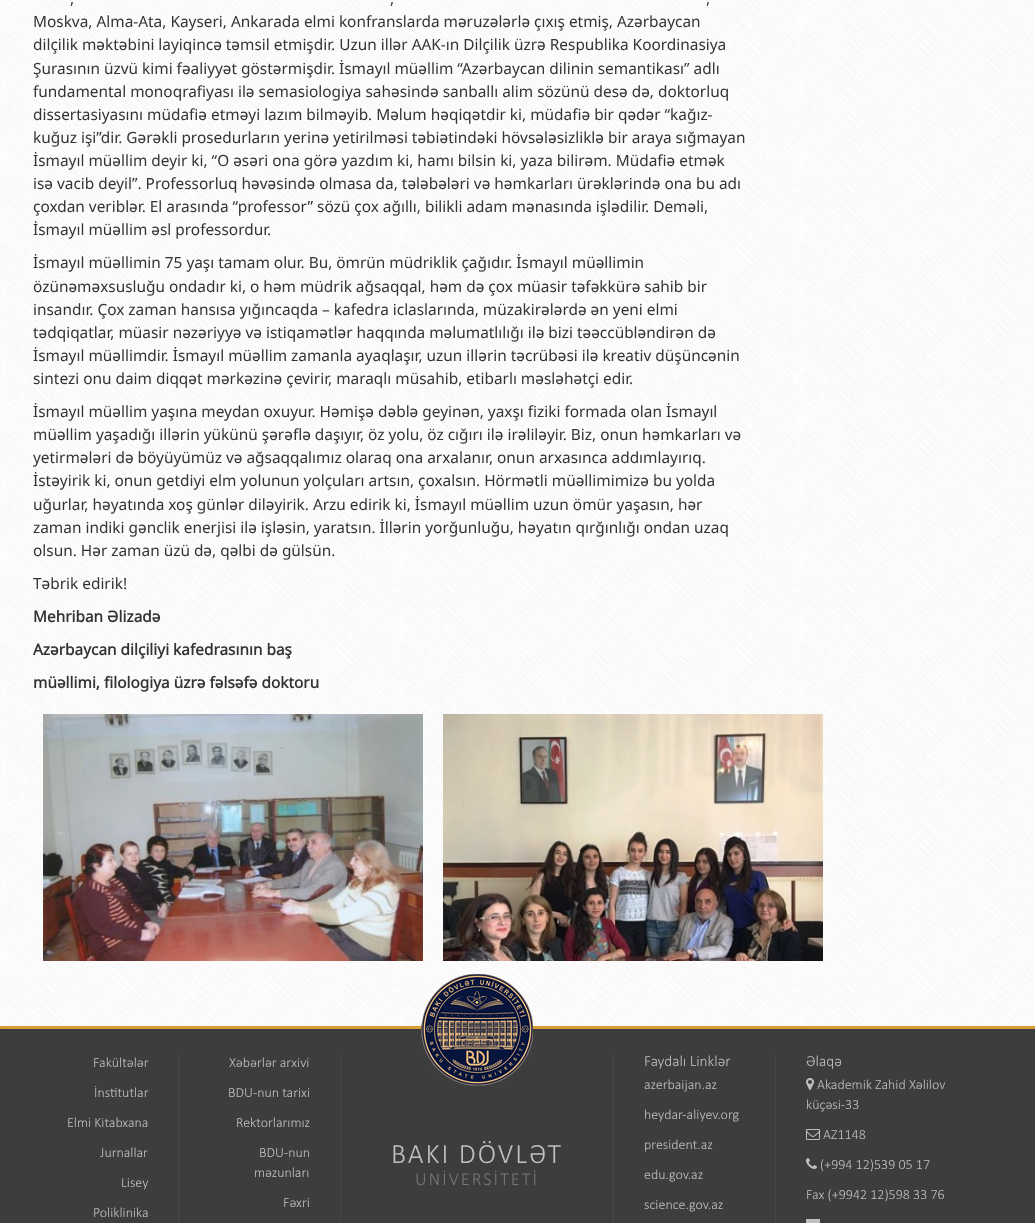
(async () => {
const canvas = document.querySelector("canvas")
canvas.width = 1035
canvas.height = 1223
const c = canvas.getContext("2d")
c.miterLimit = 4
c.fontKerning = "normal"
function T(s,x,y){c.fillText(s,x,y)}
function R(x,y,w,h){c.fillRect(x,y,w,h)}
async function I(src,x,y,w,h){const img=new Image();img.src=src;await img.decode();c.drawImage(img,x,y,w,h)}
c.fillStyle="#fbfbfb"
R(0,0,1035,1223)
await I("1.png",1,0,1031,1026)
c.font="15.4px Noto Sans"
c.fillStyle="#333"
T(",",70,4)
T(",",390,4)
T(",",706,4)
T("Moskva, Alma-Ata, Kayseri, Ankarada elmi konfranslarda məruzələrlə çıxış etmiş, Azərbaycan",33,27)
T("dilçilik məktəbini layiqincə təmsil etmişdir. Uzun illər AAK-ın Dilçilik üzrə Respublika Koordinasiya",33,50)
T("Şurasının üzvü kimi fəaliyyət göstərmişdir. İsmayıl müəllim “Azərbaycan dilinin semantikası” adlı",33,74)
T("fundamental monoqrafiyası ilə semasiologiya sahəsində sanballı alim sözünü desə də, doktorluq",33,97)
T("dissertasiyasını müdafiə etməyi lazım bilməyib. Məlum həqiqətdir ki, müdafiə bir qədər “kağız-",33,120)
T("kuğuz işi”dir. Gərəkli prosedurların yerinə yetirilməsi təbiətindəki hövsələsizliklə bir araya sığmayan",33,143)
T("İsmayıl müəllim deyir ki, “O əsəri ona görə yazdım ki, hamı bilsin ki, yaza bilirəm. Müdafiə etmək",33,166)
T("isə vacib deyil”. Professorluq həvəsində olmasa da, tələbələri və həmkarları ürəklərində ona bu adı",33,189)
T("çoxdan veriblər. El arasında “professor” sözü çox ağıllı, bilikli adam mənasında işlədilir. Deməli,",33,212)
T("İsmayıl müəllim əsl professordur.",33,235)
T("İsmayıl müəllimin 75 yaşı tamam olur. Bu, ömrün müdriklik çağıdır. İsmayıl müəllimin",33,268)
T("özünəməxsusluğu ondadır ki, o həm müdrik ağsaqqal, həm də çox müasir təfəkkürə sahib bir",33,292)
T("insandır. Çox zaman hansısa yığıncaqda – kafedra iclaslarında, müzakirələrdə ən yeni elmi",33,315)
T("tədqiqatlar, müasir nəzəriyyə və istiqamətlər haqqında məlumatlılığı ilə bizi təəccübləndirən də",33,338)
T("İsmayıl müəllimdir. İsmayıl müəllim zamanla ayaqlaşır, uzun illərin təcrübəsi ilə kreativ düşüncənin",33,361)
T("sintezi onu daim diqqət mərkəzinə çevirir, maraqlı müsahib, etibarlı məsləhətçi edir.",33,384)
T("İsmayıl müəllim yaşına meydan oxuyur. Həmişə dəblə geyinən, yaxşı fiziki formada olan İsmayıl",33,417)
T("müəllim yaşadığı illərin yükünü şərəflə daşıyır, öz yolu, öz cığırı ilə irəliləyir. Biz, onun həmkarları və",33,440)
T("yetirmələri də böyüyümüz və ağsaqqalımız olaraq ona arxalanır, onun arxasınca addımlayırıq.",33,463)
T("İstəyirik ki, onun getdiyi elm yolunun yolçuları artsın, çoxalsın. Hörmətli müəllimimizə bu yolda",33,486)
T("uğurlar, həyatında xoş günlər diləyirik. Arzu edirik ki, İsmayıl müəllim uzun ömür yaşasın, hər",33,510)
T("zaman indiki gənclik enerjisi ilə işləsin, yaratsın. İllərin yorğunluğu, həyatın qırğınlığı ondan uzaq",33,533)
T("olsun. Hər zaman üzü də, qəlbi də gülsün.",33,556)
T("Təbrik edirik!",33,589)
c.font="bold 15.4px Noto Sans"
T("Mehriban Əlizadə",33,622)
T("Azərbaycan dilçiliyi kafedrasının baş",33,655)
T("müəllimi, filologiya üzrə fəlsəfə doktoru",33,688)
await I("2.png",43,714,380,247)
await I("3.png",443,714,380,247)
c.fillStyle="#3e3d3d"
R(0,1029,1035,194)
c.fillStyle="#d69d36"
R(0,1026,1035,3)
c.fillStyle="#494848"
R(178,1054,1,169)
c.font="300 14px Calibri"
c.fillStyle="#c0c0c0"
T("Fakültələr",93,1067)
T("İnstitutlar",94,1097)
T("Elmi Kitabxana",67,1127)
T("Jurnallar",100,1157)
T("Lisey",121,1187)
T("Poliklinika",93,1217)
c.fillStyle="#494848"
R(340,1054,1,169)
c.fillStyle="#c0c0c0"
T("Xəbərlər arxivi",229,1067)
T("BDU-nun tarixi",228,1097)
T("Rektorlarımız",236,1127)
T("BDU-nun",259,1157)
T("məzunları",254,1177)
T("Fəxri",283,1207)
await I("4.png",421,974,112,112)
c.letterSpacing="2px"
c.font="300 28px Calibri"
T("BAKI DÖVLƏT",391,1163)
c.font="300 18.25px Calibri"
c.fillStyle="#777"
T("UNİVERSİTETİ",415,1185)
c.fillStyle="#494848"
R(613,1054,1,169)
c.letterSpacing="0px"
c.font="300 15.4px Calibri"
c.fillStyle="#c0c0c0"
T("Faydalı Linklər",644,1066)
c.font="300 14px Calibri"
T("azerbaijan.az",644,1089)
T("heydar-aliyev.org",644,1119)
T("president.az",644,1149)
T("edu.gov.az",644,1179)
T("science.gov.az",644,1209)
c.fillStyle="#494848"
R(775,1054,1,169)
c.font="300 15.4px Calibri"
c.fillStyle="#c0c0c0"
T("Əlaqə",806,1066)
await I("5.png",806,1078,8,12)
c.font="300 14px Calibri"
T("Akademik Zahid Xəlilov",817,1089)
T("küçəsi-33",806,1109)
await I("6.png",806,1129,14,11)
T("AZ1148",823,1139)
await I("7.png",806,1158,11,11)
T("(+994 12)539 05 17",820,1169)
T("Fax (+9942 12)598 33 76",806,1199)
R(806,1219,14,4)
})()
